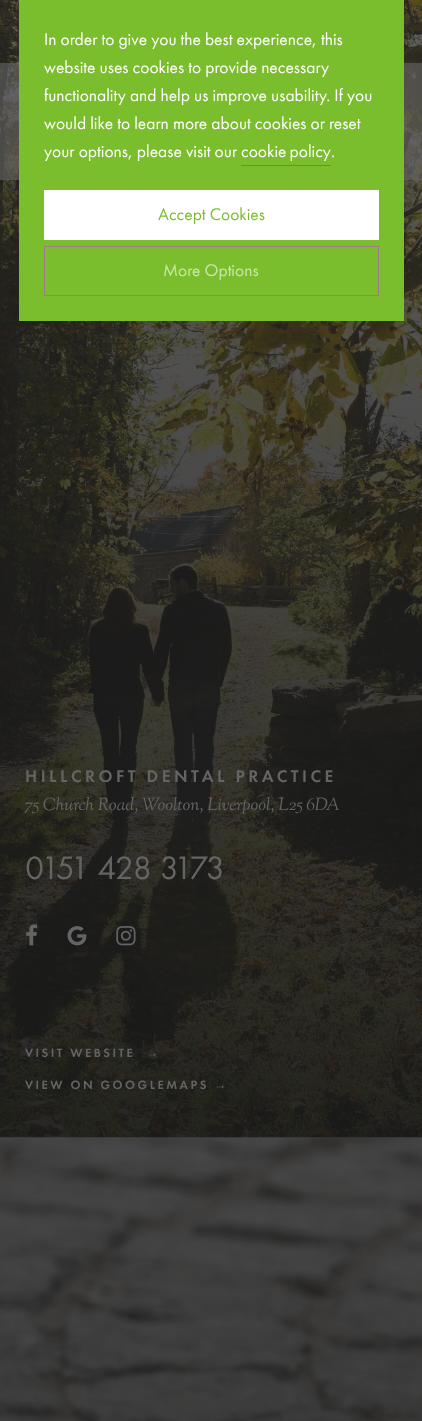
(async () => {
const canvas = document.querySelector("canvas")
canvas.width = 422
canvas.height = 1421
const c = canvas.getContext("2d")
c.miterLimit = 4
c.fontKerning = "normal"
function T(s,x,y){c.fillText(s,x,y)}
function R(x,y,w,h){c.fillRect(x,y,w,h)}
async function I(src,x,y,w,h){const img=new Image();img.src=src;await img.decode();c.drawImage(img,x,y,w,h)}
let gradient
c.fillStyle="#fff"
R(0,0,422,1421)
await I("1.png",0,0,422,1138)
gradient = c.createLinearGradient(211,0,211,1138)
gradient.addColorStop(0,"#18181800")
gradient.addColorStop(1,"#181818cc")
c.fillStyle = gradient
R(0,53,422,1085)
c.fillStyle="#64646499"
R(0,63,422,117)
c.fillStyle="#7bbe2d"
R(19,0,385,321)
c.font="17.5px Futura PT"
c.fillStyle="#fff"
T("In order to give you the best experience, this",44,45)
T("website uses cookies to provide necessary",44,73)
T("functionality and help us improve usability. If you",44,101)
T("would like to learn more about cookies or reset",44,129)
T("your options, please visit our",44,157)
c.wordSpacing="-1px"
T("cookie policy",241,157)
c.fillStyle="#b44ec6"
R(241,165,90,1)
c.wordSpacing="0px"
c.fillStyle="#fff"
T(".",331,157)
R(44,190,335,50)
c.fillStyle="#7bbe2d"
T("Accept Cookies",158,220)
c.strokeStyle="#9d7b89"
c.strokeRect(44.5,246.5,334,49)
c.fillStyle="#cae5ab"
T("More Options",163,276)
c.letterSpacing="3.5px"
c.font="500 17.5px Futura PT"
c.fillStyle="#646464"
T("HILLCROFT DENTAL PRACTICE",25,782)
c.letterSpacing="0px"
c.font="italic 500 17.5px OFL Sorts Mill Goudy"
T("75 Church Road, Woolton, Liverpool, L25 6DA",25,810)
c.font="33.75px Futura PT"
T("0151 428 3173",25,879)
await I("2.png",26,924,12,22)
await I("3.png",67,926,20,20)
await I("4.png",116,926,20,20)
c.letterSpacing="2.5px"
c.font="500 12.5px Futura PT"
T("VISIT WEBSITE",25,1057)
c.font="bold 12.5px Liberation Sans"
T("→",146,1057)
c.font="500 12.5px Futura PT"
T("VIEW ON GOOGLEMAPS",25,1089)
c.font="bold 12.5px Liberation Sans"
T("→",214,1089)
await I("5.png",0,1137,422,284)
})()
